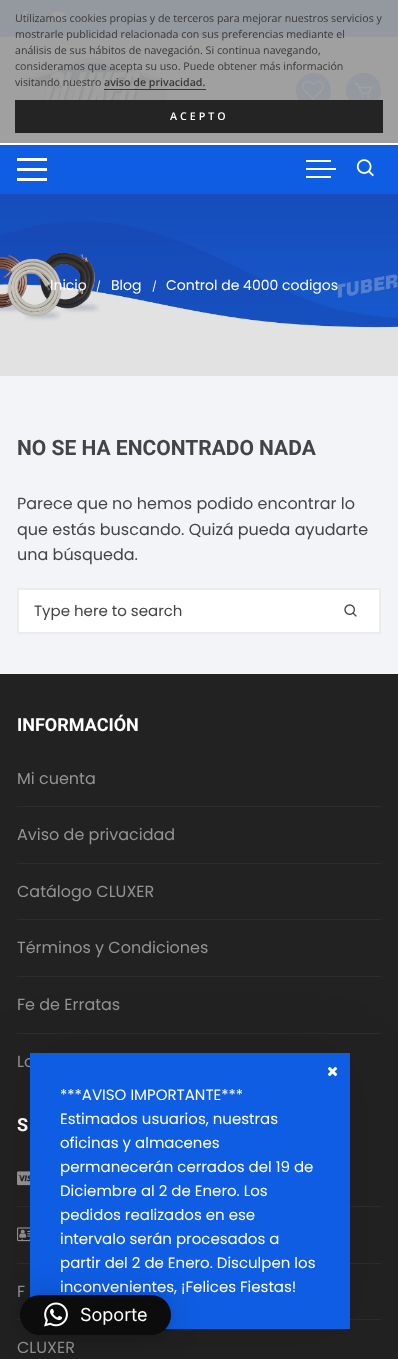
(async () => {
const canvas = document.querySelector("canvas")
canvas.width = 398
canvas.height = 1359
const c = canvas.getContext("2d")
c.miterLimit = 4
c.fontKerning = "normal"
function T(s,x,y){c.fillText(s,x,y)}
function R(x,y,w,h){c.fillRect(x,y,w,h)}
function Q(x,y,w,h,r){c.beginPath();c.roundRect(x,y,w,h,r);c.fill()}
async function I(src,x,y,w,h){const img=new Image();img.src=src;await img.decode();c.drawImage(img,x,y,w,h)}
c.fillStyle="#f3f4f8"
R(0,0,398,1359)
c.fillStyle="#94989f"
R(0,0,398,36)
await I("1.png",21,10,7,13)
await I("2.png",52,12,13,9)
await I("3.png",87,10,13,13)
c.font="10.65px Open Sans"
c.fillStyle="#373838"
T("Utilizamos cookies propias y de terceros para mejorar nuestros servicios y",15,22)
c.fillStyle="#a0a0a0"
R(0,37,398,106)
c.fillStyle="#969a9f"
R(0,36,398,1)
c.fillStyle="#373838"
T("mostrarle publicidad relacionada con sus preferencias mediante el",15,38)
T("análisis de sus hábitos de navegación. Si continua navegando,",15,54)
await I("4.png",17,57,150,68)
T("consideramos que acepta su uso. Puede obtener más información",15,70)
T("visitando nuestro",15,86)
c.font="600 10.65px Open Sans"
T("aviso de privacidad.",104,86)
c.fillStyle="#333333f2"
R(104,89,102,1)
c.fillStyle="#94989f"
c.beginPath()
c.arc(313.5,90.5,17.5,0,7)
c.fill()
c.beginPath()
c.arc(363.5,90.5,17.5,0,7)
c.fill()
c.fillStyle="#1d1d1df2"
R(15,100,368,33)
c.letterSpacing="3px"
c.fillStyle="#fff"
T("ACEPTO",170,120)
R(0,143,398,2)
await I("5.png",302,80,22,20)
await I("6.png",354,82,19,16)
c.fillStyle="#0f5de2"
R(0,145,398,49)
c.fillStyle="#fff"
R(17,158,30,3)
R(17,168,30,3)
R(17,178,30,3)
R(306,160,25,2)
R(306,168,30,2)
R(306,176,25,2)
await I("7.png",356,159,18,18)
await I("8.png",0,194,398,182)
c.letterSpacing="0px"
c.font="14px Poppins"
T("Inicio",50,290)
c.font="10px Poppins"
T("/",96,290)
c.font="14px Poppins"
T("Blog",111,290)
c.font="10px Poppins"
T("/",152,290)
c.font="14px Poppins"
T("Control de 4000 codigos",166,290)
c.font="bold 21px Roboto"
c.fillStyle="#444"
T("NO SE HA ENCONTRADO NADA",17,455)
c.font="16px Poppins"
T("Parece que no hemos podido encontrar lo",17,509)
T("que estás buscando. Quizá pueda ayudarte",17,535)
T("una búsqueda.",17,560)
c.fillStyle="#fff"
c.beginPath()
c.rect(18,589,362,44)
c.fill()
c.strokeStyle="#ececec"
c.lineWidth=2
c.stroke()
c.font="15px Poppins"
c.fillStyle="#444"
T("Type here to search",34,616)
await I("9.png",344,604,13,13)
c.fillStyle="#222"
R(0,674,398,685)
c.font="bold 18px Roboto"
c.fillStyle="#fff"
T("INFORMACIÓN",17,731)
c.fillStyle="#2d2d2d"
R(17,806,364,1)
c.font="16px Poppins"
c.fillStyle="#949494"
T("Mi cuenta",17,784)
c.fillStyle="#2d2d2d"
R(17,863,364,1)
c.fillStyle="#949494"
T("Aviso de privacidad",17,840)
c.fillStyle="#2d2d2d"
R(17,919,364,1)
c.fillStyle="#949494"
T("Catálogo CLUXER",17,897)
c.fillStyle="#2d2d2d"
R(17,976,364,1)
c.fillStyle="#949494"
T("Términos y Condiciones",17,953)
c.fillStyle="#2d2d2d"
R(17,1033,364,1)
c.fillStyle="#949494"
T("Fe de Erratas",17,1010)
T("Lo",17,1067)
c.font="bold 18px Roboto"
c.fillStyle="#fff"
T("S",17,1131)
c.fillStyle="#2d2d2d"
R(17,1206,364,1)
await I("10.png",17,1171,13,15)
R(17,1263,364,1)
await I("11.png",17,1227,13,15)
R(17,1319,364,1)
c.font="16px Poppins"
c.fillStyle="#949494"
T("F",17,1297)
T("CLUXER",17,1353)
c.fillStyle="#0000001a"
c.filter="blur(32.5px)"
c.beginPath()
c.rect(30,1053,320,276)
c.fill()
c.filter="none"
c.fillStyle="#0f5de2"
R(30,1053,320,276)
await I("12.png",327,1066,11,11)
c.font="15px Poppins"
c.fillStyle="#fff"
T("***AVISO IMPORTANTE***",60,1100)
T("Estimados usuarios, nuestras",60,1124)
T("oficinas y almacenes",60,1148)
T("permanecerán cerrados del 19 de",60,1172)
T("Diciembre al 2 de Enero. Los",60,1196)
T("pedidos realizados en ese",60,1220)
T("intervalo serán procesados a",60,1244)
T("partir del 2 de Enero. Disculpen los",60,1268)
T("inconvenientes, ¡Felices Fiestas!",60,1292)
c.fillStyle="#00000029"
c.filter="blur(16px)"
c.beginPath()
c.roundRect(20,1297,151,40,20)
c.fill()
c.filter="none"
c.fillStyle="#0000000f"
c.filter="blur(3px)"
c.beginPath()
c.roundRect(20,1296,151,40,20)
c.fill()
c.filter="none"
c.fillStyle="#0c0c0c"
Q(20,1295,151,40,20)
await I("13.png",44,1302,24,25)
c.font="18px Inter"
c.fillStyle="#fff"
T("Soporte",80,1321)
})()
